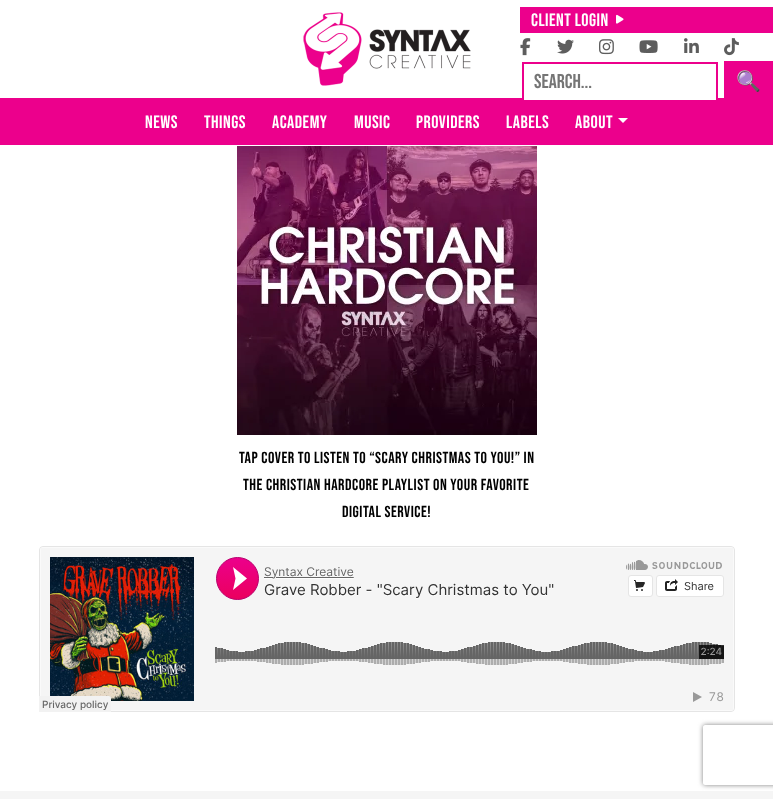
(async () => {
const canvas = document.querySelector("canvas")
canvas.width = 773
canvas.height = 799
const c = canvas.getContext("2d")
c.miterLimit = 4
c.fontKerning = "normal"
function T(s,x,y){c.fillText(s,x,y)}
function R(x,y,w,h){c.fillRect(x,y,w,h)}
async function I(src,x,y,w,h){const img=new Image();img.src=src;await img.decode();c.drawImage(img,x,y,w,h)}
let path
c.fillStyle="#fff"
R(0,0,773,799)
await I("1.png",303,12,168,74)
c.fillStyle="#ec008c"
R(520,7,253,26)
c.letterSpacing="0.5px"
c.font="18px Bebas Neue"
c.fillStyle="#fff"
T("Client Login",531,26)
await I("2.png",616,14,8,10)
await I("3.png",520,38,11,18)
await I("4.png",557,39,17,15)
await I("5.png",599,39,15,16)
await I("6.png",639,40,19,13)
await I("7.png",684,38,15,15)
await I("8.png",724,38,15,18)
c.fillStyle="#ec008c"
R(0,98,773,47)
c.fillStyle="#fff"
R(524,98,192,2)
c.strokeStyle="#ec008c"
c.lineWidth=2
c.strokeRect(523,63,194,38)
c.letterSpacing="0px"
c.font="20px Bebas Neue"
c.fillStyle="#757575"
T("Search...",534,88)
c.fillStyle="#ec008c"
R(724,61,49,37)
c.font="20px Noto Color Emoji"
c.fillStyle="#fff"
T("🔍",736,88)
c.letterSpacing="0.5px"
c.font="18px Bebas Neue"
T("NEWS",145,128)
T("THINGS",204,128)
T("ACADEMY",272,128)
T("MUSIC",354,128)
T("PROVIDERS",416,128)
T("LABELS",506,128)
T("ABOUT",575,128)
path = new Path2D("M618 118h10l-5 5z")
c.fill(path)
await I("9.png",237,146,300,289)
c.font="16px Bebas Neue"
c.fillStyle="#000"
T("Tap cover to listen to “Scary Christmas to You!” in",239,463)
T("the Christian Hardcore playlist on your favorite",243,490)
T("digital service!",342,517)
await I("10.png",39,546,696,166)
c.fillStyle="#f5f5f5"
R(0,791,773,8)
c.save()
path = new Path2D("M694 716h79v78h-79zm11 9h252c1 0 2 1 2 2v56c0 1-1 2-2 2h-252c-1 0-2-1-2-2v-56c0-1 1-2 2-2z")
c.clip(path,"evenodd")
c.fillStyle="#808080"
c.filter="blur(2.5px)"
c.beginPath()
c.roundRect(703,725,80,60,2)
c.fill()
c.filter="none"
c.restore()
})()
